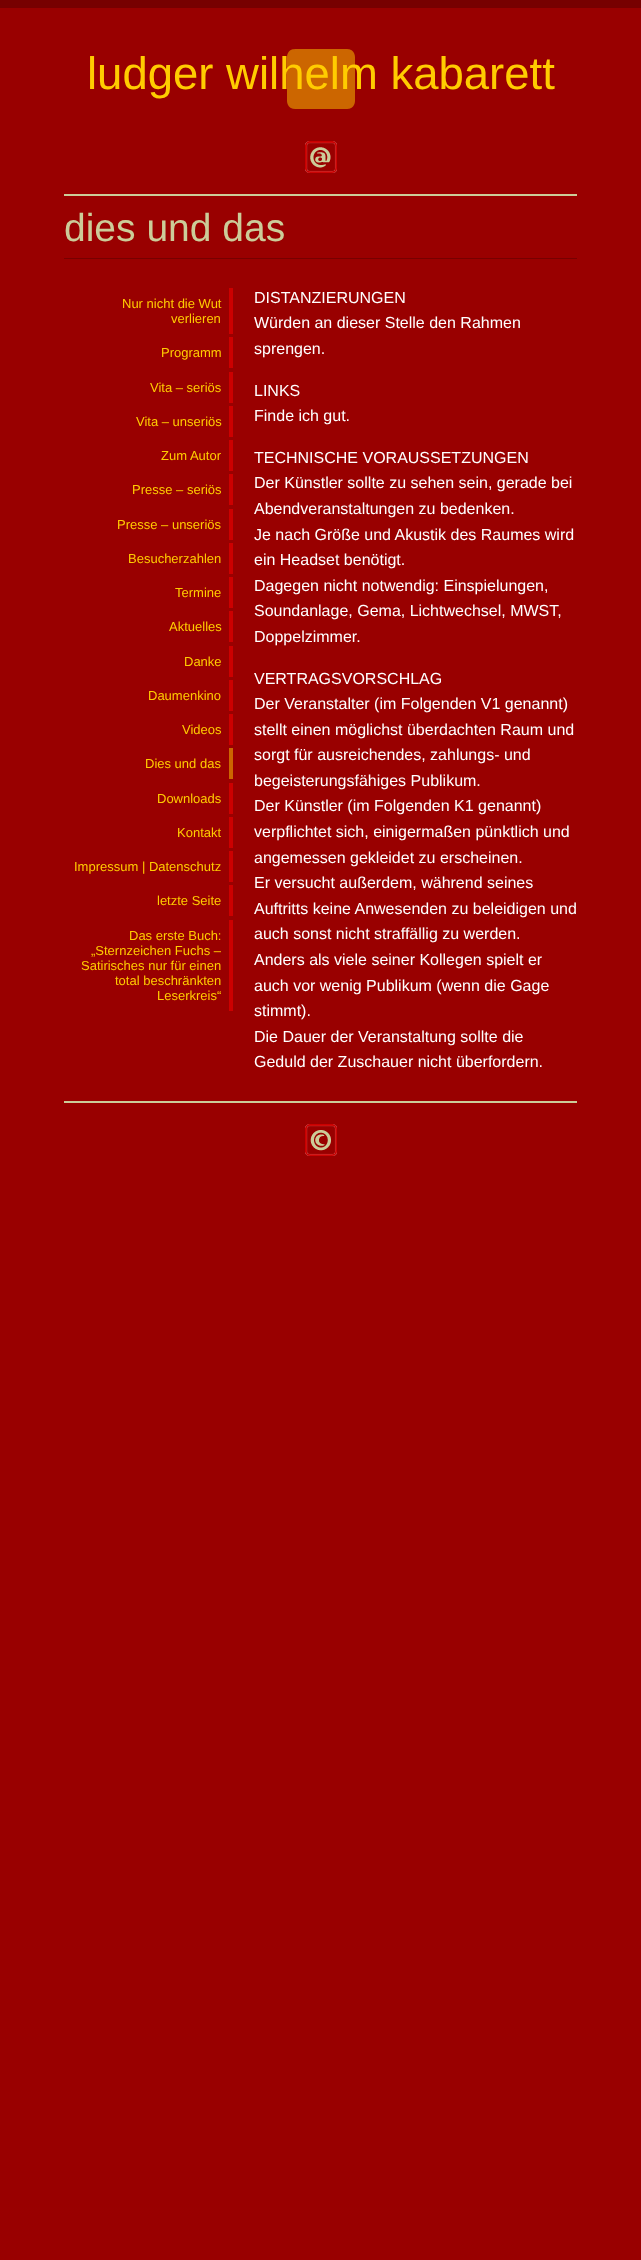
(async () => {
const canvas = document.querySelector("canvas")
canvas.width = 641
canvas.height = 2260
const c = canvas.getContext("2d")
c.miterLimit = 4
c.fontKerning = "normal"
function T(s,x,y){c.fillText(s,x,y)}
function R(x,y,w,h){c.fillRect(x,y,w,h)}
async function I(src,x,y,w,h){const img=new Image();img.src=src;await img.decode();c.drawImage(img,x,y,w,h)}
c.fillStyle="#900"
R(0,0,641,2260)
c.fillStyle="#700"
R(0,0,641,8)
await I("1.png",287,49,68,60)
c.font="45.5px Liberation Sans"
c.fillStyle="#fc0"
T("ludger wilhelm kabarett",87,89)
await I("2.png",305,141,32,32)
c.fillStyle="#cc9"
R(64,194,513,2)
R(64,1101,513,2)
c.fillStyle="#700"
R(64,258,513,1)
c.font="39px Liberation Sans"
c.fillStyle="#cc9"
T("dies und das",64,241)
c.fillStyle="#c00"
R(229,288,4,46)
c.font="13px Liberation Sans"
c.fillStyle="#fc0"
T("Nur nicht die Wut",122,308)
T("verlieren",171,323)
c.fillStyle="#c00"
R(229,337,4,31)
c.fillStyle="#fc0"
T("Programm",161,357)
c.fillStyle="#c00"
R(229,372,4,31)
c.fillStyle="#fc0"
T("Vita – seriös",150,392)
c.fillStyle="#c00"
R(229,406,4,31)
c.fillStyle="#fc0"
T("Vita – unseriös",136,426)
c.fillStyle="#c00"
R(229,440,4,31)
c.fillStyle="#fc0"
T("Zum Autor",161,460)
c.fillStyle="#c00"
R(229,474,4,31)
c.fillStyle="#fc0"
T("Presse – seriös",132,494)
c.fillStyle="#c00"
R(229,509,4,31)
c.fillStyle="#fc0"
T("Presse – unseriös",117,529)
c.fillStyle="#c00"
R(229,543,4,31)
c.fillStyle="#fc0"
T("Besucherzahlen",128,563)
c.fillStyle="#c00"
R(229,577,4,31)
c.fillStyle="#fc0"
T("Termine",175,597)
c.fillStyle="#c00"
R(229,611,4,31)
c.fillStyle="#fc0"
T("Aktuelles",169,631)
c.fillStyle="#c00"
R(229,646,4,31)
c.fillStyle="#fc0"
T("Danke",184,666)
c.fillStyle="#c00"
R(229,680,4,31)
c.fillStyle="#fc0"
T("Daumenkino",148,700)
c.fillStyle="#c00"
R(229,714,4,31)
c.fillStyle="#fc0"
T("Videos",182,734)
c.fillStyle="#c60"
R(229,748,4,31)
c.fillStyle="#fc0"
T("Dies und das",145,768)
c.fillStyle="#c00"
R(229,783,4,31)
c.fillStyle="#fc0"
T("Downloads",157,803)
c.fillStyle="#c00"
R(229,817,4,31)
c.fillStyle="#fc0"
T("Kontakt",177,837)
c.fillStyle="#c00"
R(229,851,4,31)
c.fillStyle="#fc0"
T("Impressum | Datenschutz",74,871)
c.fillStyle="#c00"
R(229,885,4,31)
c.fillStyle="#fc0"
T("letzte Seite",157,905)
c.fillStyle="#c00"
R(229,920,4,91)
c.fillStyle="#fc0"
T("Das erste Buch:",129,940)
T("„Sternzeichen Fuchs –",91,955)
T("Satirisches nur für einen",81,970)
T("total beschränkten",115,985)
T("Leserkreis“",157,1000)
c.font="16px Liberation Sans"
c.fillStyle="#fff"
T("DISTANZIERUNGEN",254,303)
T("Würden an dieser Stelle den Rahmen",254,328)
T("sprengen.",254,354)
T("LINKS",254,396)
T("Finde ich gut.",254,421)
T("TECHNISCHE VORAUSSETZUNGEN",254,463)
T("Der Künstler sollte zu sehen sein, gerade bei",254,488)
T("Abendveranstaltungen zu bedenken.",254,514)
T("Je nach Größe und Akustik des Raumes wird",254,540)
T("ein Headset benötigt.",254,565)
T("Dagegen nicht notwendig: Einspielungen,",254,591)
T("Soundanlage, Gema, Lichtwechsel, MWST,",254,616)
T("Doppelzimmer.",254,642)
T("VERTRAGSVORSCHLAG",254,684)
T("Der Veranstalter (im Folgenden V1 genannt)",254,709)
T("stellt einen möglichst überdachten Raum und",254,735)
T("sorgt für ausreichendes, zahlungs- und",254,760)
T("begeisterungsfähiges Publikum.",254,786)
T("Der Künstler (im Folgenden K1 genannt)",254,811)
T("verpflichtet sich, einigermaßen pünktlich und",254,837)
T("angemessen gekleidet zu erscheinen.",254,863)
T("Er versucht außerdem, während seines",254,888)
T("Auftritts keine Anwesenden zu beleidigen und",254,914)
T("auch sonst nicht straffällig zu werden.",254,939)
T("Anders als viele seiner Kollegen spielt er",254,965)
T("auch vor wenig Publikum (wenn die Gage",254,991)
T("stimmt).",254,1016)
T("Die Dauer der Veranstaltung sollte die",254,1042)
T("Geduld der Zuschauer nicht überfordern.",254,1067)
await I("3.png",305,1124,32,32)
})()
